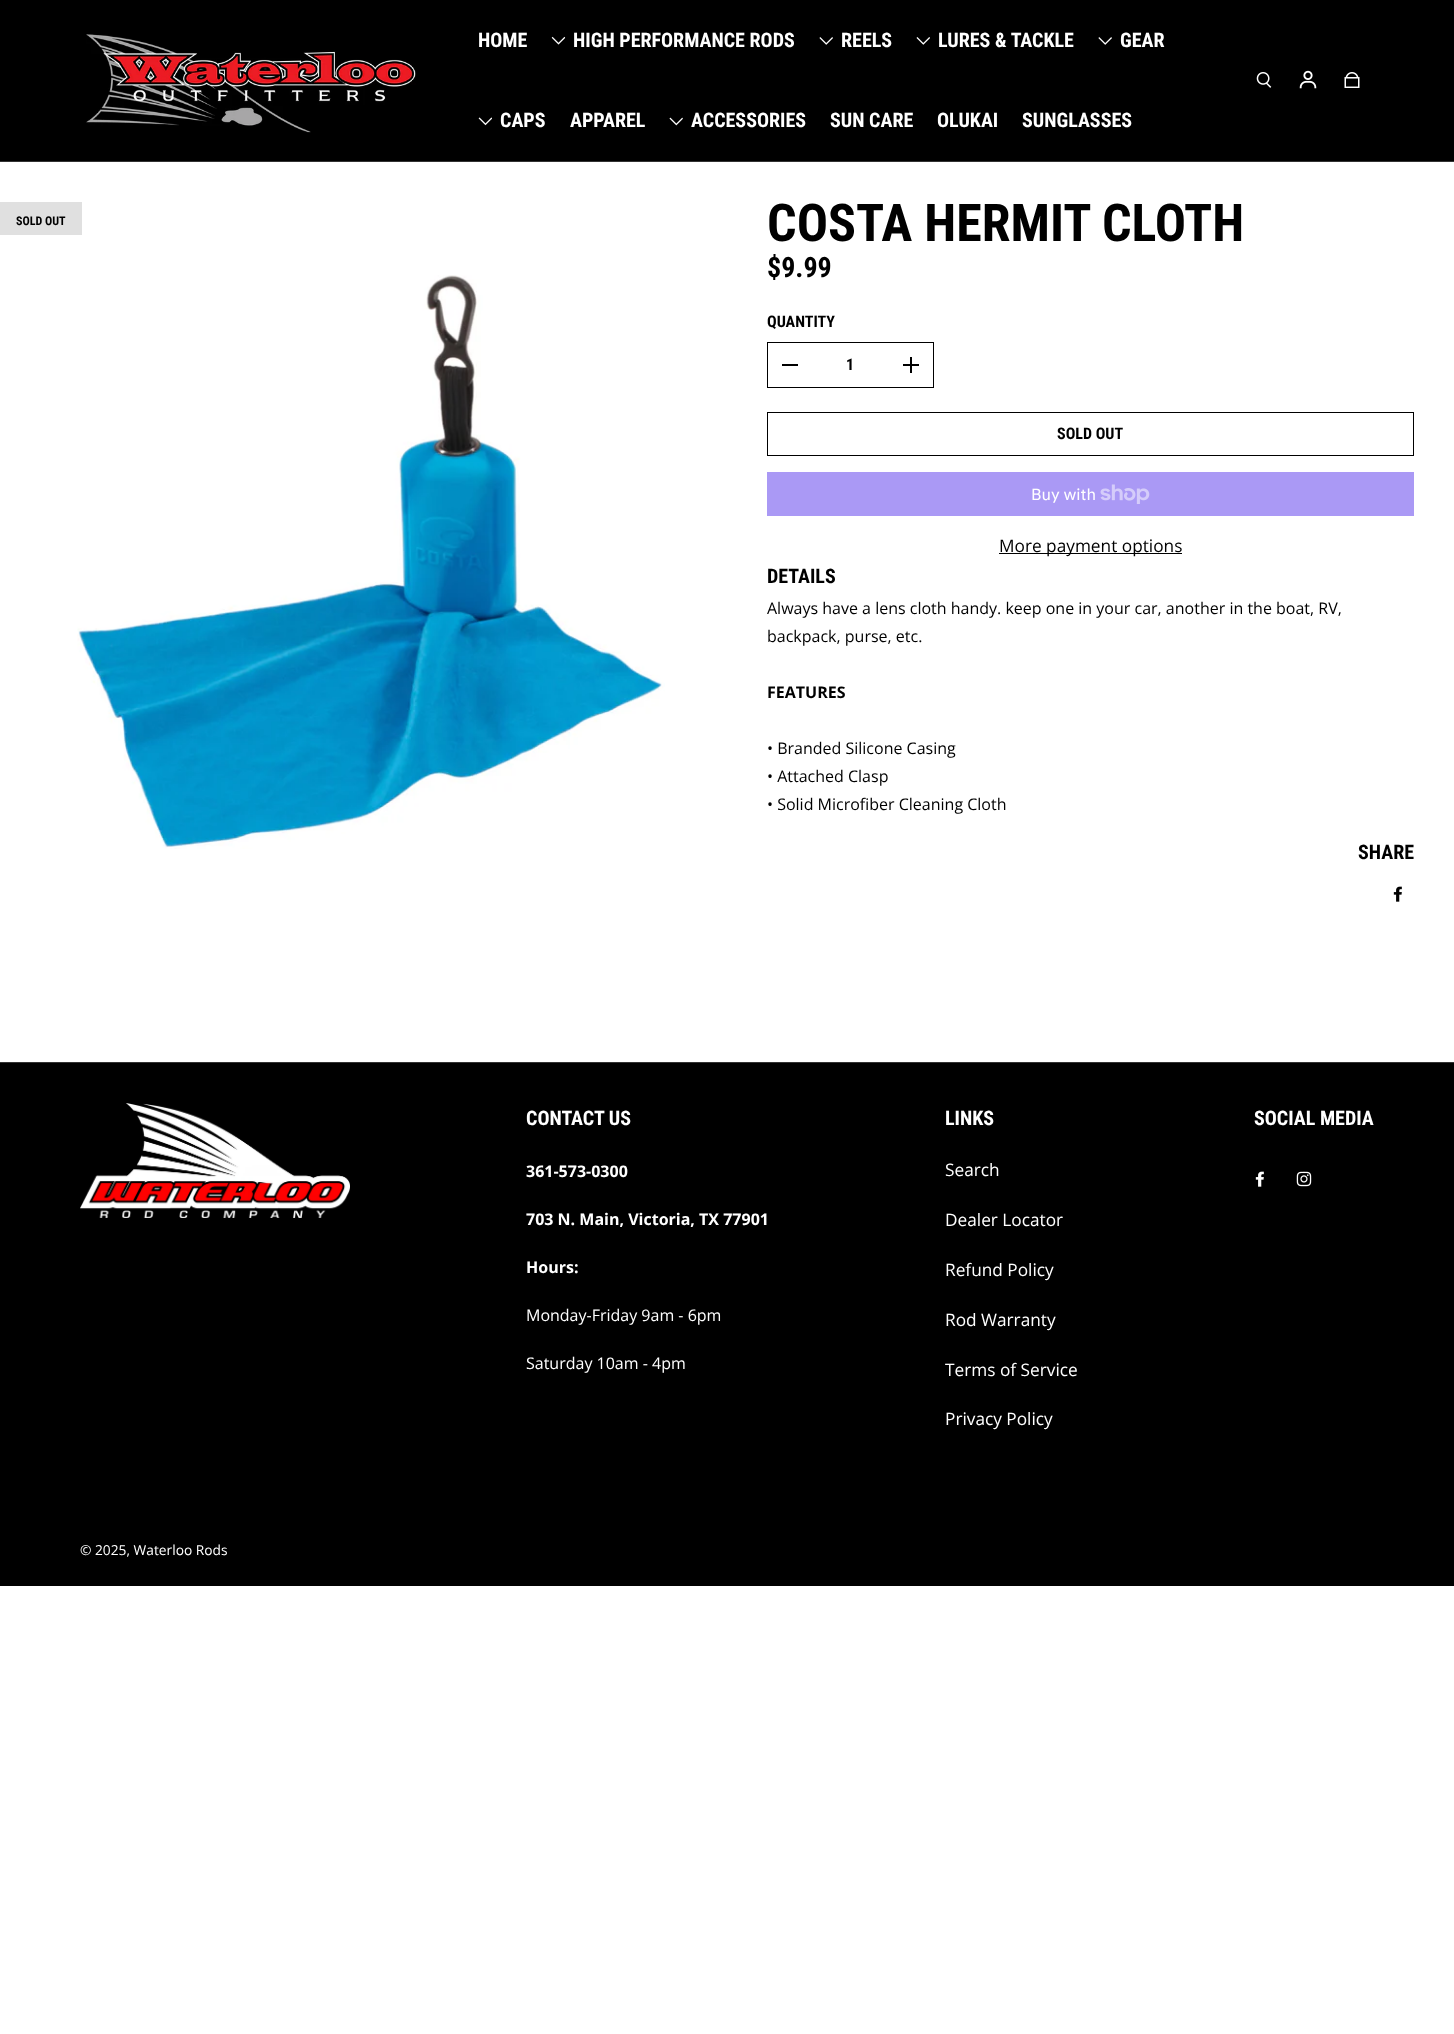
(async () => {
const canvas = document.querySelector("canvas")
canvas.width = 1454
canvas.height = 2034
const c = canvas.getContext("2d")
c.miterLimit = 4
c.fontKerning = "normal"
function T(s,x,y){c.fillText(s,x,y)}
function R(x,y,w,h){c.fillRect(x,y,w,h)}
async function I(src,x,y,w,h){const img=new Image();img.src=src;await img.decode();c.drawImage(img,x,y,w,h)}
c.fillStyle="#fff"
R(0,0,1454,2034)
c.fillStyle="#000"
R(0,0,1454,161)
c.fillStyle="#333"
R(0,161,1454,1)
await I("1.png",86,34,330,99)
c.font="bold 20px Roboto Condensed"
c.fillStyle="#fff"
T("HOME",478,47)
await I("2.png",551,36,15,9)
T("HIGH PERFORMANCE RODS",573,47)
await I("3.png",819,37,14,8)
T("REELS",841,47)
await I("4.png",916,37,14,8)
T("LURES & TACKLE",938,47)
await I("5.png",1098,37,14,8)
T("GEAR",1120,47)
await I("6.png",478,117,14,9)
T("CAPS",500,127)
T("APPAREL",570,127)
await I("7.png",669,117,14,9)
T("ACCESSORIES",691,127)
T("SUN CARE",830,127)
T("OLUKAI",937,127)
T("SUNGLASSES",1022,127)
await I("8.png",1256,72,16,16)
await I("9.png",1299,70,18,19)
await I("10.png",1344,72,16,16)
c.fillStyle="#e0e0e0"
R(0,202,82,33)
c.font="bold 12px Roboto Condensed"
c.fillStyle="#000"
T("SOLD OUT",16,225)
await I("11.png",77,275,588,574)
c.font="bold 52px Roboto Condensed"
T("COSTA HERMIT CLOTH",767,241)
c.font="bold 28px Roboto Condensed"
T("$9.99",767,277)
c.font="bold 16px Roboto Condensed"
T("QUANTITY",767,327)
c.strokeStyle="#000"
c.strokeRect(767.5,342.5,166,45)
R(782,364,16,2)
T("1",846,370)
R(903,364,16,2)
R(910,357,2,16)
c.strokeRect(767.5,412.5,646,43)
T("SOLD OUT",1057,439)
c.fillStyle="#aa99f5"
R(767,472,647,44)
c.font="16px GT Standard"
c.fillStyle="#fff"
T("Buy with",1031,500)
await I("12.png",1100,484,50,20)
c.fillStyle="#000"
R(999,553,183,1)
c.font="17.25px Open Sans"
T("More payment options",999,552)
c.font="bold 20px Roboto Condensed"
T("DETAILS",767,583)
c.font="16px Open Sans"
T("Always have a lens cloth handy. keep one in your car, another in the boat, RV,",767,614)
T("backpack, purse, etc.",767,642)
c.font="bold 16px Open Sans"
T("FEATURES",767,698)
c.font="16px Open Sans"
T("• Branded Silicone Casing",767,754)
T("• Attached Clasp",767,782)
T("• Solid Microfiber Cleaning Cloth",767,810)
c.font="bold 20px Roboto Condensed"
T("SHARE",1358,859)
await I("13.png",1393,886,9,16)
R(0,1063,1454,523)
c.fillStyle="#333"
R(0,1062,1454,1)
await I("14.png",80,1103,270,115)
c.fillStyle="#fff"
T("CONTACT US",526,1125)
c.font="bold 16px Open Sans"
T("361-573-0300",526,1177)
T("703 N. Main, Victoria, TX 77901",526,1225)
T("Hours:",526,1273)
c.font="16px Open Sans"
T("Monday-Friday 9am - 6pm",526,1321)
T("Saturday 10am - 4pm",526,1369)
c.font="bold 20px Roboto Condensed"
T("LINKS",945,1125)
c.font="17.25px Open Sans"
T("Search",945,1176)
T("Dealer Locator",945,1226)
T("Refund Policy",945,1276)
T("Rod Warranty",945,1326)
T("Terms of Service",945,1376)
T("Privacy Policy",945,1425)
c.font="bold 20px Roboto Condensed"
T("SOCIAL MEDIA",1254,1125)
await I("15.png",1255,1171,9,16)
await I("16.png",1296,1171,16,16)
c.font="13.75px Open Sans"
T("© 2025, Waterloo Rods",80,1555)
})()
